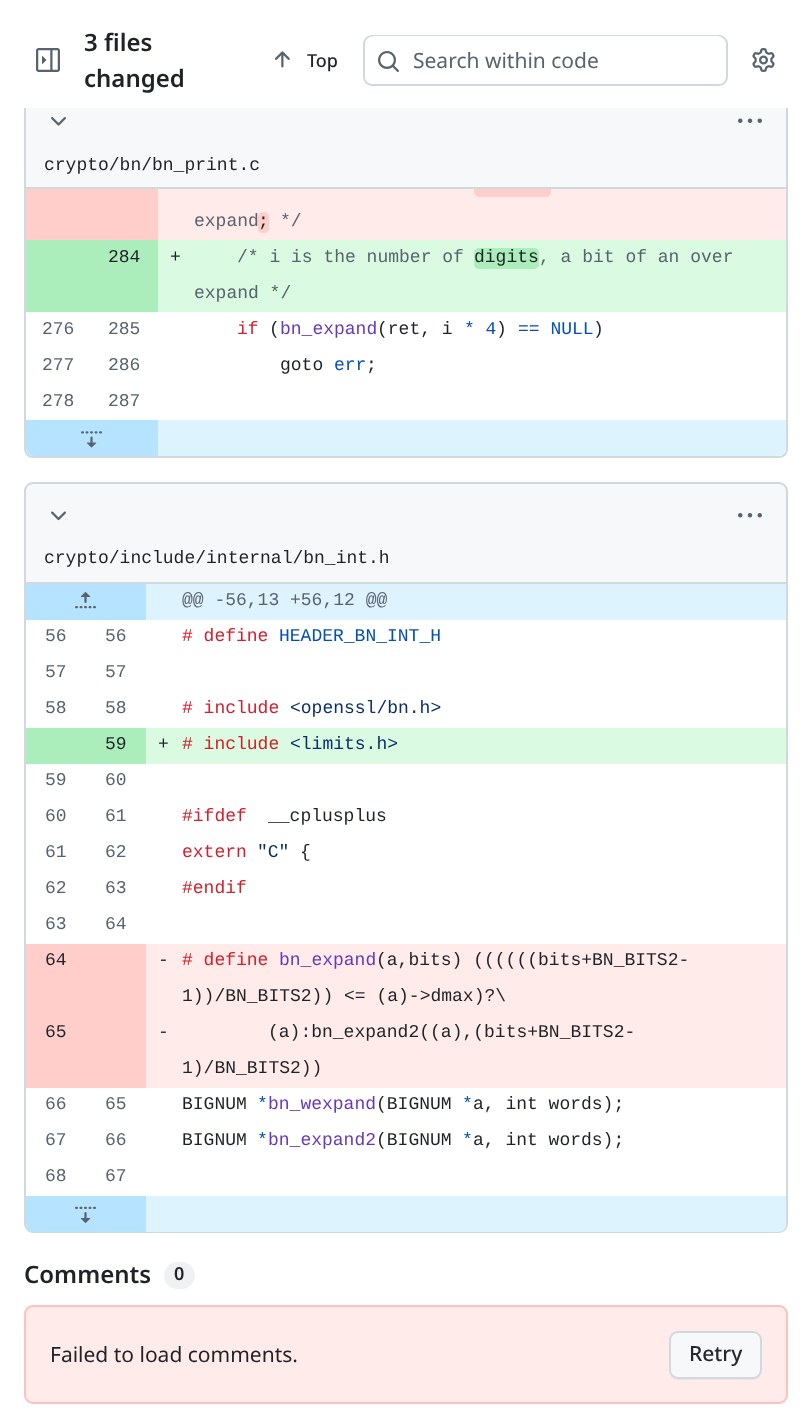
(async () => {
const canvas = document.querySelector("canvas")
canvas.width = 811
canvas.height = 1428
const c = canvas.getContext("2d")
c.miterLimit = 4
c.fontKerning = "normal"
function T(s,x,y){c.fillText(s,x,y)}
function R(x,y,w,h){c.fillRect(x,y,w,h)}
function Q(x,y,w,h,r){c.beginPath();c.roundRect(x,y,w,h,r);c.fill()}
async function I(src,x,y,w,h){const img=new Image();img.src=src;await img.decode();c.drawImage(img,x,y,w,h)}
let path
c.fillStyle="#fff"
R(0,0,811,1428)
path = new Path2D("M25-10h762v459c0 4.5-3.5 8-8 8h-746c-4.5 0-8-3.5-8-8z")
c.strokeStyle="#d1d9e0"
c.lineWidth=2
c.stroke(path)
c.fillStyle="#ffebe9"
R(158,189,628,51)
c.fillStyle="#ffcecb"
Q(474,176,77,21,5)
c.fillStyle="#f6f8fa"
R(26,108,760,79)
c.strokeRect(25,88,762,100)
c.fillStyle="#fff"
R(24,0,764,108)
await I("1.png",36,48,24,24)
c.font="600 24px Noto Sans"
c.fillStyle="#1f2328"
T("3 files",84,51)
T("changed",84,87)
await I("2.png",274,51,16,17)
c.font="500 18px Noto Sans"
T("Top",307,67)
c.beginPath()
c.roundRect(364,36,363,49,8)
c.stroke()
c.fillStyle="#fff"
Q(365,36,361,48,9)
await I("3.png",378,51,21,21)
c.font="21px Noto Sans"
c.fillStyle="#59636e"
T("Search within code",413,68)
await I("4.png",752,48,23,24)
await I("5.png",51,117,15,9)
await I("6.png",738,118,24,5)
c.font="18px Liberation Mono"
c.fillStyle="#1f2328"
T("crypto/bn/bn_print.c",44,170)
c.fillStyle="#ffcecb"
R(26,189,132,51)
c.fillStyle="#59636e"
T("expand",194,226)
c.fillStyle="#ffcecb"
Q(258,212,11,21,5)
c.fillStyle="#1f2328"
T(";",258,226)
c.fillStyle="#59636e"
T("*/",280,226)
c.fillStyle="#aceebb"
R(26,240,132,72)
c.fillStyle="#dafbe1"
R(158,240,628,72)
c.fillStyle="#1f2328"
T("+",170,262)
c.fillStyle="#59636e"
T("/* i is the number of",237,262)
c.fillStyle="#aceebb"
Q(474,248,65,21,5)
c.fillStyle="#1f2328"
T("digits",474,262)
c.fillStyle="#59636e"
T(", a bit of an over",539,262)
T("expand */",194,298)
c.fillStyle="#1f2328"
T("284",108,262)
c.fillStyle="#59636e"
T("276",42,334)
T("285",108,334)
c.fillStyle="#cf222e"
T("if",237,334)
c.fillStyle="#1f2328"
T("(",269,334)
c.fillStyle="#6639ba"
T("bn_expand",280,334)
c.fillStyle="#1f2328"
T("(ret, i",377,334)
c.fillStyle="#0550ae"
T("* 4",464,334)
c.fillStyle="#1f2328"
T(")",496,334)
c.fillStyle="#0550ae"
T("== NULL",518,334)
c.fillStyle="#1f2328"
T(")",593,334)
c.fillStyle="#59636e"
T("277",42,370)
T("286",108,370)
c.fillStyle="#1f2328"
T("goto",280,370)
c.fillStyle="#0550ae"
T("err",334,370)
c.fillStyle="#1f2328"
T(";",366,370)
c.fillStyle="#59636e"
T("278",42,406)
T("287",108,406)
c.fillStyle="#ddf4ff"
c.beginPath()
c.roundRect(26,420,760,36,[0,0,8,8])
c.fill()
c.fillStyle="#b6e3ff"
c.beginPath()
c.roundRect(26,420,132,36,[0,0,0,8])
c.fill()
await I("7.png",81,431,21,17)
c.beginPath()
c.roundRect(25,583,762,649,[0,0,8,8])
c.stroke()
c.fillStyle="#f6f8fa"
c.beginPath()
c.roundRect(25,483,762,100,[8,8,0,0])
c.fill()
c.stroke()
await I("8.png",51,511,15,10)
await I("9.png",738,513,24,5)
c.fillStyle="#1f2328"
T("crypto/include/internal/bn_int.h",44,563)
c.fillStyle="#ddf4ff"
R(146,584,640,36)
c.fillStyle="#b6e3ff"
R(26,584,120,36)
await I("10.png",75,592,21,17)
c.fillStyle="#59636e"
T("@@ -56,13 +56,12 @@",182,605)
T("56",45,641)
T("56",105,641)
c.fillStyle="#cf222e"
T("# define",182,641)
c.fillStyle="#0550ae"
T("HEADER_BN_INT_H",279,641)
c.fillStyle="#59636e"
T("57",45,677)
T("57",105,677)
T("58",45,713)
T("58",105,713)
c.fillStyle="#cf222e"
T("# include",182,713)
c.fillStyle="#0a3069"
T("<openssl/bn.h>",290,713)
c.fillStyle="#aceebb"
R(26,728,120,36)
c.fillStyle="#dafbe1"
R(146,728,640,36)
c.fillStyle="#1f2328"
T("+",158,749)
c.fillStyle="#cf222e"
T("# include",182,749)
c.fillStyle="#0a3069"
T("<limits.h>",290,749)
c.fillStyle="#1f2328"
T("59",105,749)
c.fillStyle="#59636e"
T("59",45,785)
T("60",105,785)
T("60",45,821)
T("61",105,821)
c.fillStyle="#cf222e"
T("#ifdef",182,821)
c.fillStyle="#1f2328"
T("__cplusplus",268,821)
c.fillStyle="#59636e"
T("61",45,857)
T("62",105,857)
c.fillStyle="#cf222e"
T("extern",182,857)
c.fillStyle="#0a3069"
T("\"C\"",257,857)
c.fillStyle="#1f2328"
T("{",300,857)
c.fillStyle="#59636e"
T("62",45,893)
T("63",105,893)
c.fillStyle="#cf222e"
T("#endif",182,893)
c.fillStyle="#59636e"
T("63",45,929)
T("64",105,929)
c.fillStyle="#ffcecb"
R(26,944,120,72)
c.fillStyle="#1f2328"
T("64",45,965)
c.fillStyle="#ffebe9"
R(146,944,640,144)
c.fillStyle="#1f2328"
T("-",158,965)
c.fillStyle="#cf222e"
T("# define",182,965)
c.fillStyle="#6639ba"
T("bn_expand",279,965)
c.fillStyle="#1f2328"
T("(a,bits) ((((((bits+BN_BITS2-",376,965)
T("1))/BN_BITS2)) <= (a)->dmax)?\\",182,1001)
c.fillStyle="#ffcecb"
R(26,1016,120,72)
c.fillStyle="#1f2328"
T("65",45,1037)
T("-",158,1037)
T("(a):bn_expand2((a),(bits+BN_BITS2-",268,1037)
T("1)/BN_BITS2))",182,1073)
c.fillStyle="#59636e"
T("66",45,1109)
T("65",105,1109)
c.fillStyle="#1f2328"
T("BIGNUM",182,1109)
c.fillStyle="#0550ae"
T("*",257,1109)
c.fillStyle="#6639ba"
T("bn_wexpand",268,1109)
c.fillStyle="#1f2328"
T("(BIGNUM",376,1109)
c.fillStyle="#0550ae"
T("*",462,1109)
c.fillStyle="#1f2328"
T("a, int words);",473,1109)
c.fillStyle="#59636e"
T("67",45,1145)
T("66",105,1145)
c.fillStyle="#1f2328"
T("BIGNUM",182,1145)
c.fillStyle="#0550ae"
T("*",257,1145)
c.fillStyle="#6639ba"
T("bn_expand2",268,1145)
c.fillStyle="#1f2328"
T("(BIGNUM",376,1145)
c.fillStyle="#0550ae"
T("*",462,1145)
c.fillStyle="#1f2328"
T("a, int words);",473,1145)
c.fillStyle="#59636e"
T("68",45,1181)
T("67",105,1181)
c.fillStyle="#ddf4ff"
c.beginPath()
c.roundRect(26,1196,760,36,[0,0,8,8])
c.fill()
c.fillStyle="#b6e3ff"
c.beginPath()
c.roundRect(26,1196,120,36,[0,0,0,8])
c.fill()
await I("11.png",75,1206,21,17)
c.font="600 24px Noto Sans"
c.fillStyle="#1f2328"
T("Comments",24,1283)
c.fillStyle="#f0f1f3"
Q(164,1262,31,27,13.5)
c.font="600 18px Noto Sans"
c.fillStyle="#1f2328"
T("0",174,1280)
c.fillStyle="#ffebe9"
Q(24,1305,764,99,9)
c.beginPath()
c.roundRect(25,1306,762,97,8)
c.strokeStyle="#ff818266"
c.stroke()
c.font="21px Noto Sans"
c.fillStyle="#1f2328"
T("Failed to load comments.",50,1362)
c.fillStyle="#f6e3e1"
path = new Path2D("M669 1370c0 13 12 10 21 10h50c10 0 22 3 22-10c0 4-4 8-9 8h-75c-5 0-9-4-9-8z")
c.fill(path)
c.fillStyle="#f6f8fa"
c.beginPath()
c.roundRect(670,1332,91,46,8)
c.fill()
c.strokeStyle="#d1d9e0"
c.stroke()
c.font="500 21px Noto Sans"
c.fillStyle="#25292e"
T("Retry",689,1361)
})()
